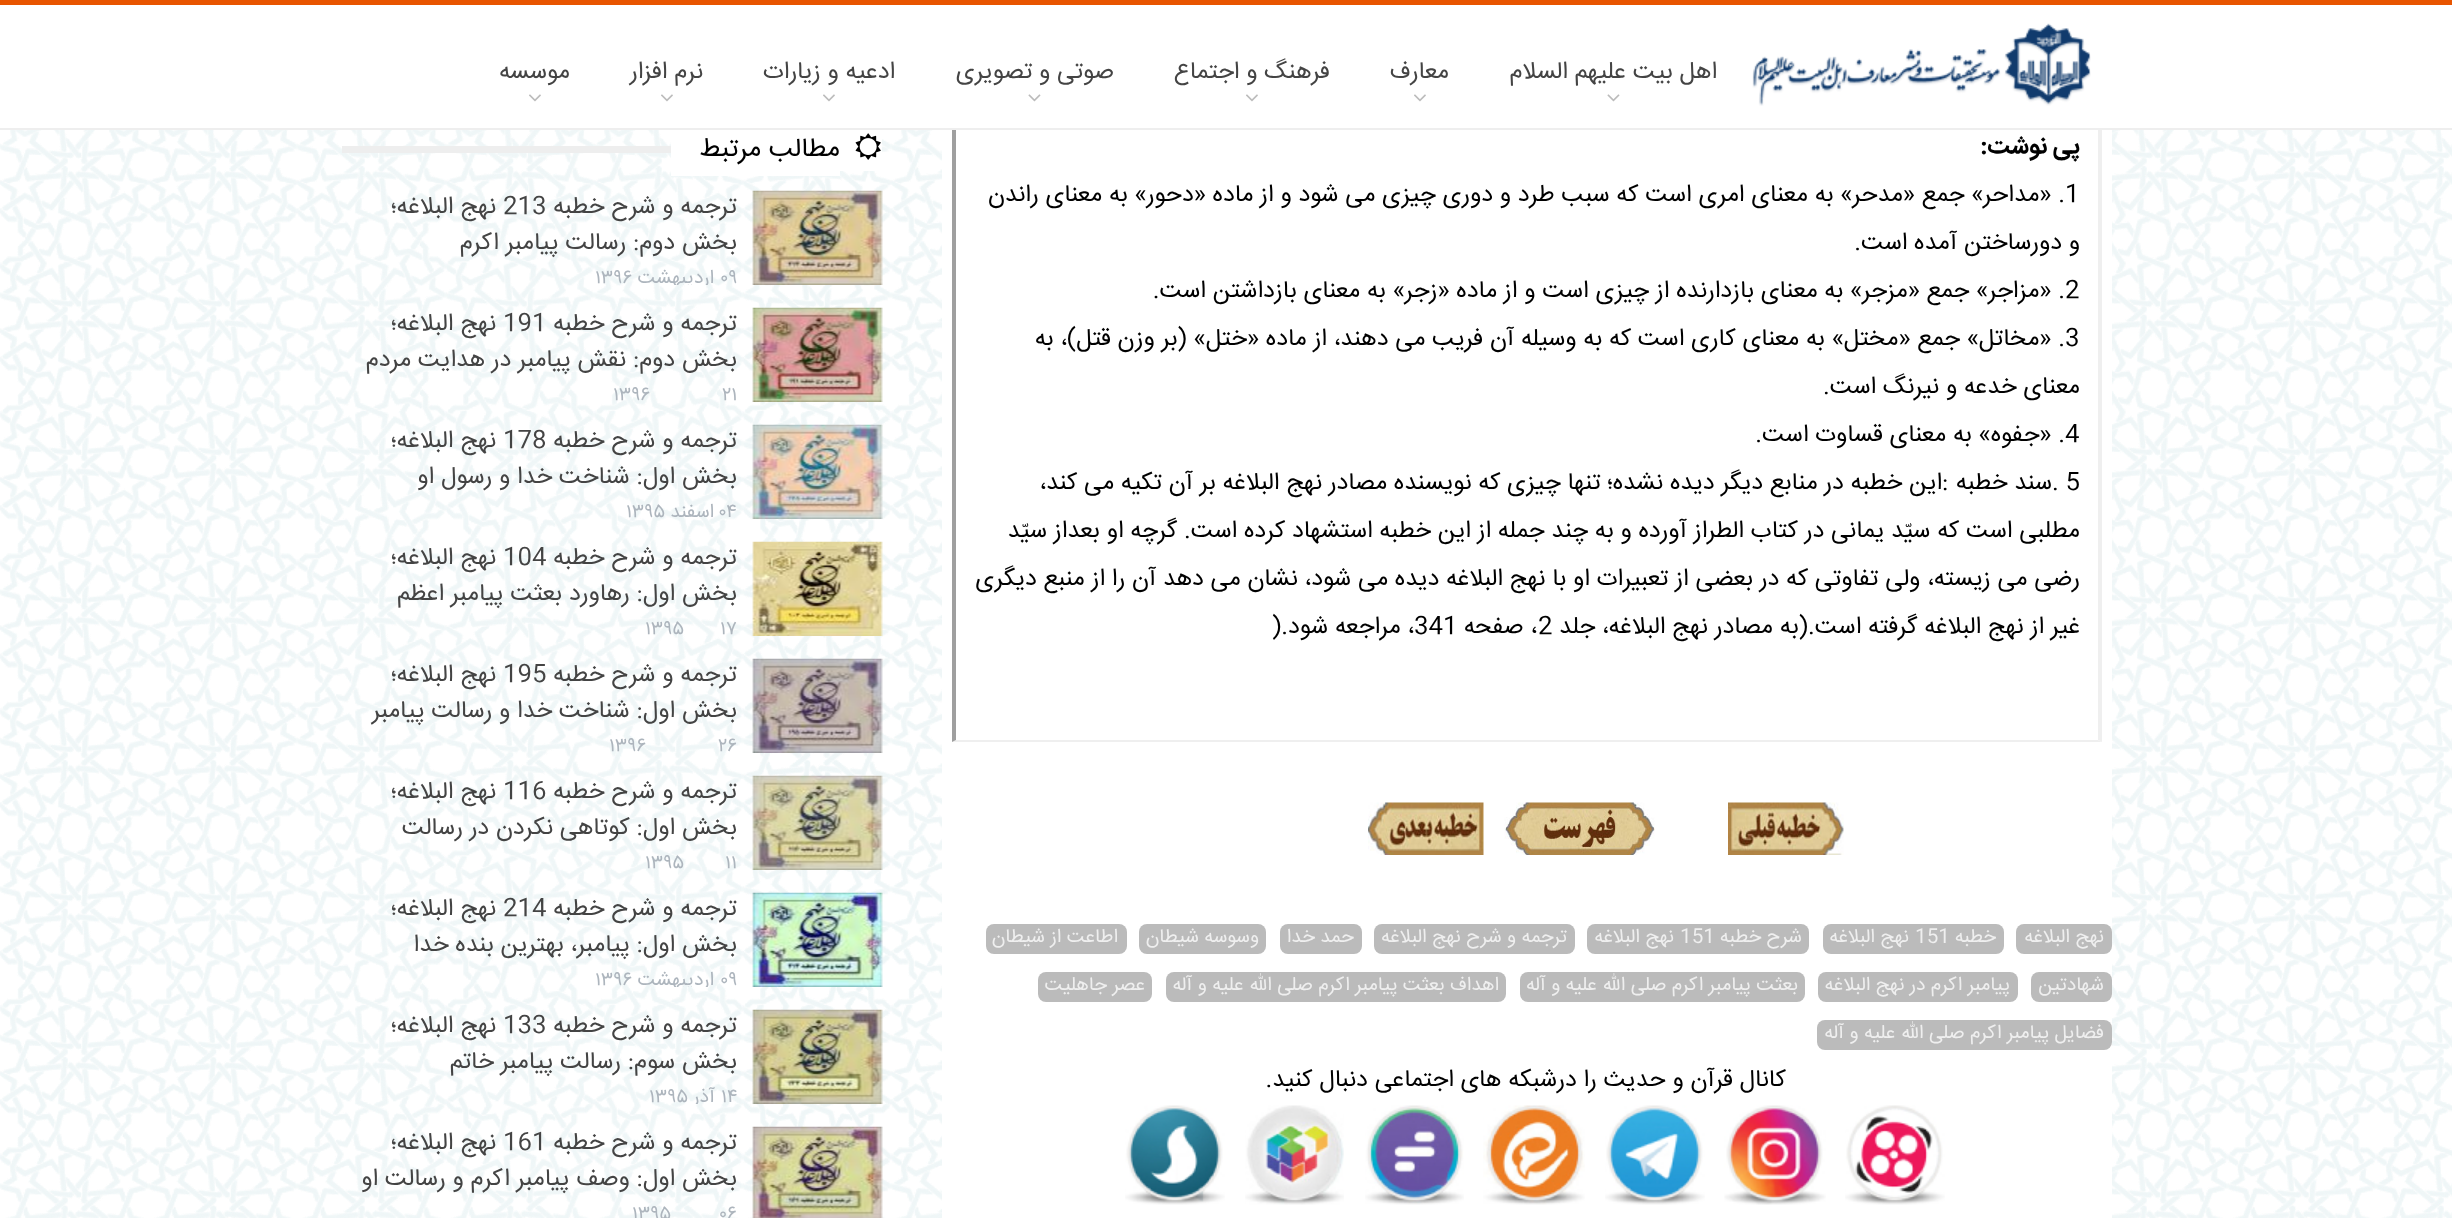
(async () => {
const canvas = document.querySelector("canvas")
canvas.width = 2452
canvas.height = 1218
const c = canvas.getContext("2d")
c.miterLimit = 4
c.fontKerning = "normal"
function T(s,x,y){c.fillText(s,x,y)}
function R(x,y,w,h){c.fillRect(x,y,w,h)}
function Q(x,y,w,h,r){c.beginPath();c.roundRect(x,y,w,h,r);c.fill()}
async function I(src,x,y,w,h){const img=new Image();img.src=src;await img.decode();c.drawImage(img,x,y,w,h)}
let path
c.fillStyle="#fff"
R(0,0,2452,1218)
await I("1.png",0,130,2452,1088)
await I("2.png",0,130,2452,1088)
R(942,130,1170,1088)
c.fillStyle="#efefef"
path = new Path2D("M2102-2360v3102l-4-2v-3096z")
c.fill(path)
path = new Path2D("M2102 742h-1150l4-2h1142z")
c.fill(path)
c.fillStyle="#9f9f9f"
path = new Path2D("M952 742v-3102l4 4v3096z")
c.fill(path)
c.fillStyle="#fff"
R(952,5,1150,123)
c.fillStyle="#e85500"
R(0,0,2452,5)
c.fillStyle="#eee"
R(0,128,2452,2)
await I("3.png",1752,23,339,83)
c.direction="rtl"
c.font="24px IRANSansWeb"
c.fillStyle="#444"
T("اهل بیت علیهم السلام",1717,78)
await I("4.png",1607,94,13,8)
T("معارف",1449,78)
await I("5.png",1414,94,12,8)
T("فرهنگ و اجتماع",1330,78)
await I("5.png",1246,94,12,8)
T("صوتی و تصویری",1114,78)
await I("4.png",1028,94,13,8)
T("ادعیه و زیارات",895,78)
await I("5.png",823,94,12,8)
T("نرم افزار",703,78)
await I("5.png",661,94,12,8)
T("موسسه",570,78)
await I("5.png",529,94,12,8)
c.font="bold 24px IRANSansWeb"
c.fillStyle="#000"
T("پی نوشت:",2080,153)
c.direction="ltr"
c.font="24px IRANSansWeb"
T("1",2065,201)
c.direction="rtl"
T(". «مداحر» جمع «مدحر» به معناى امرى است که سبب طرد و دورى چيزى مى شود و از ماده «دحور» به معناى راندن",2065,201)
T("و دورساختن آمده است.",2080,249)
c.direction="ltr"
T("2",2065,297)
c.direction="rtl"
T(". «مزاجر» جمع «مزجر» به معناى بازدارنده از چيزى است و از ماده «زجر» به معناى بازداشتن است.",2065,297)
c.direction="ltr"
T("3",2065,345)
c.direction="rtl"
T(". «مخاتل» جمع «مختل» به معناى کارى است که به وسيله آن فريب مى دهند، از ماده «ختل» (بر وزن قتل)، به",2065,345)
T("معناى خدعه و نيرنگ است.",2080,393)
c.direction="ltr"
T("4",2065,441)
c.direction="rtl"
T(". «جفوه» به معناى قساوت است.",2065,441)
c.direction="ltr"
T(". 5",2052,489)
c.direction="rtl"
T("سند خطبه",2052,489)
c.direction="ltr"
T(":",1942,489)
c.direction="rtl"
T("اين خطبه در منابع ديگر ديده نشده؛ تنها چيزى كه نويسنده مصادر نهج البلاغه بر آن تكيه مى كند،",1942,489)
T("مطلبى است كه سيّد يمانى در كتاب الطراز آورده و به چند جمله از اين خطبه استشهاد كرده است. گرچه او بعداز سيّد",2080,537)
T("رضى مى زيسته، ولى تفاوتى كه در بعضى از تعبيرات او با نهج البلاغه ديده مى شود، نشان مى دهد آن را از منبع ديگرى",2080,585)
T("غير از نهج البلاغه گرفته است.(به مصادر نهج البلاغه، جلد",2080,633)
c.direction="ltr"
T("2",1538,633)
c.direction="rtl"
T("، صفحه",1537,633)
c.direction="ltr"
T("341",1414,633)
c.direction="rtl"
T("، مراجعه شود",1414,633)
c.direction="ltr"
T(").",1272,633)
await I("6.png",1728,802,116,53)
await I("7.png",1504,802,151,53)
await I("8.png",1368,802,116,53)
c.fillStyle="#bbb"
Q(2016,924,96,30,8)
c.direction="rtl"
c.font="19.25px IRANSansWeb"
c.fillStyle="#efefef"
T("نهج البلاغه",2104,942)
c.fillStyle="#bbb"
Q(1823,924,181,30,8)
c.fillStyle="#efefef"
T("خطبه",1996,942)
c.direction="ltr"
T("151",1915,942)
c.direction="rtl"
T("نهج البلاغه",1909,942)
c.fillStyle="#bbb"
Q(1587,924,222,30,8)
c.fillStyle="#efefef"
T("شرح خطبه",1802,942)
c.direction="ltr"
T("151",1680,942)
c.direction="rtl"
T("نهج البلاغه",1674,942)
c.fillStyle="#bbb"
Q(1374,924,201,30,8)
c.fillStyle="#efefef"
T("ترجمه و شرح نهج البلاغه",1567,942)
c.fillStyle="#bbb"
Q(1280,924,82,30,8)
c.fillStyle="#efefef"
T("حمد خدا",1354,942)
c.fillStyle="#bbb"
Q(1139,924,127,30,8)
c.fillStyle="#efefef"
T("وسوسه شیطان",1259,942)
c.fillStyle="#bbb"
Q(986,924,141,30,8)
c.fillStyle="#efefef"
T("اطاعت از شیطان",1118,942)
c.fillStyle="#bbb"
Q(2031,972,81,30,8)
c.fillStyle="#efefef"
T("شهادتین",2104,990)
c.fillStyle="#bbb"
Q(1818,972,200,30,8)
c.fillStyle="#efefef"
T("پیامبر اکرم در نهج البلاغه",2010,990)
c.fillStyle="#bbb"
Q(1520,972,285,30,8)
c.fillStyle="#efefef"
T("بعثت پیامبر اکرم صلی الله علیه و آله",1798,990)
c.fillStyle="#bbb"
Q(1166,972,340,30,8)
c.fillStyle="#efefef"
T("اهداف بعثت پیامبر اکرم صلی الله علیه و آله",1499,990)
c.fillStyle="#bbb"
Q(1038,972,114,30,8)
c.fillStyle="#efefef"
T("عصر جاهلیت",1145,990)
c.fillStyle="#bbb"
Q(1817,1020,295,30,8)
c.fillStyle="#efefef"
T("فضایل پیامبر اکرم صلی الله علیه و آله",2104,1038)
c.font="24px IRANSansWeb"
c.fillStyle="#000"
T("کانال قرآن و حدیث را درشبکه های اجتماعی دنبال کنید.",1786,1086)
await I("9.png",1845,1105,100,100)
await I("10.png",1724,1105,102,100)
await I("11.png",1605,1105,100,100)
await I("12.png",1483,1105,102,100)
await I("13.png",1365,1105,99,100)
await I("14.png",1245,1105,99,100)
await I("15.png",1125,1105,100,100)
c.fillStyle="#fff"
R(840,130,42,41)
await I("16.png",855,133,26,27)
R(671,130,169,46)
c.font="26.5px IRANSansWeb"
c.fillStyle="#000"
T("مطالب مرتبط",840,156)
c.fillStyle="#eee"
R(342,146,329,7)
await I("17.png",752,190,131,95)
c.font="24px IRANSansWeb"
c.fillStyle="#444"
T("ترجمه و شرح خطبه",737,213)
c.direction="ltr"
T("213",503,213)
c.direction="rtl"
T("نهج البلاغه؛",496,213)
T("بخش دوم: رسالت پیامبر اکرم",737,249)
c.direction="ltr"
c.font="19.25px IRANSansWeb"
c.fillStyle="#adb5bd"
T("۰۹",720,283)
c.save()
c.beginPath()
c.rect(342,191,540,94)
c.clip()
c.direction="rtl"
T("اردیبهشت",714,283)
c.restore()
T("۱۳۹۶",595,283)
await I("18.png",752,307,131,95)
c.direction="rtl"
c.font="24px IRANSansWeb"
c.fillStyle="#444"
T("ترجمه و شرح خطبه",737,330)
c.direction="ltr"
T("191",503,330)
c.direction="rtl"
T("نهج البلاغه؛",496,330)
T("بخش دوم: نقش پیامبر در هدایت مردم",737,366)
c.direction="ltr"
c.font="19.25px IRANSansWeb"
c.fillStyle="#adb5bd"
T("۲۱",722,400)
T("۱۳۹۶",613,400)
await I("19.png",752,424,131,95)
c.direction="rtl"
c.font="24px IRANSansWeb"
c.fillStyle="#444"
T("ترجمه و شرح خطبه",737,447)
c.direction="ltr"
T("178",503,447)
c.direction="rtl"
T("نهج البلاغه؛",496,447)
T("بخش اول: شناخت خدا و رسول او",737,483)
c.direction="ltr"
c.font="19.25px IRANSansWeb"
c.fillStyle="#adb5bd"
T("۰۴",719,517)
c.direction="rtl"
T("اسفند",714,517)
c.direction="ltr"
T("۱۳۹۵",626,517)
await I("20.png",752,541,131,95)
c.direction="rtl"
c.font="24px IRANSansWeb"
c.fillStyle="#444"
T("ترجمه و شرح خطبه",737,564)
c.direction="ltr"
T("104",503,564)
c.direction="rtl"
T("نهج البلاغه؛",496,564)
T("بخش اول: رهاورد بعثت پيامبر اعظم",737,600)
c.direction="ltr"
c.font="19.25px IRANSansWeb"
c.fillStyle="#adb5bd"
T("۱۷",720,634)
T("۱۳۹۵",645,634)
await I("21.png",752,658,131,95)
c.direction="rtl"
c.font="24px IRANSansWeb"
c.fillStyle="#444"
T("ترجمه و شرح خطبه",737,681)
c.direction="ltr"
T("195",503,681)
c.direction="rtl"
T("نهج البلاغه؛",496,681)
T("بخش اول: شناخت خدا و رسالت پیامبر",737,717)
c.direction="ltr"
c.font="19.25px IRANSansWeb"
c.fillStyle="#adb5bd"
T("۲۶",718,751)
T("۱۳۹۶",609,751)
await I("22.png",752,775,131,95)
c.direction="rtl"
c.font="24px IRANSansWeb"
c.fillStyle="#444"
T("ترجمه و شرح خطبه",737,798)
c.direction="ltr"
T("116",503,798)
c.direction="rtl"
T("نهج البلاغه؛",496,798)
T("بخش اول: کوتاهی نکردن در رسالت",737,834)
c.direction="ltr"
c.font="19.25px IRANSansWeb"
c.fillStyle="#adb5bd"
T("۱۱",725,868)
T("۱۳۹۵",645,868)
await I("23.png",752,892,131,95)
c.direction="rtl"
c.font="24px IRANSansWeb"
c.fillStyle="#444"
T("ترجمه و شرح خطبه",737,915)
c.direction="ltr"
T("214",503,915)
c.direction="rtl"
T("نهج البلاغه؛",496,915)
T("بخش اول: پیامبر، بهترین بنده خدا",737,951)
c.direction="ltr"
c.font="19.25px IRANSansWeb"
c.fillStyle="#adb5bd"
T("۰۹",720,985)
c.save()
c.beginPath()
c.rect(342,893,540,94)
c.clip()
c.direction="rtl"
T("اردیبهشت",714,985)
c.restore()
T("۱۳۹۶",595,985)
await I("24.png",752,1009,131,95)
c.direction="rtl"
c.font="24px IRANSansWeb"
c.fillStyle="#444"
T("ترجمه و شرح خطبه",737,1032)
c.direction="ltr"
T("133",503,1032)
c.direction="rtl"
T("نهج البلاغه؛",496,1032)
T("بخش سوم: رسالت پیامبر خاتم",737,1068)
c.direction="ltr"
c.font="19.25px IRANSansWeb"
c.fillStyle="#adb5bd"
T("۱۴",721,1102)
c.save()
c.beginPath()
c.rect(342,1010,540,94)
c.clip()
c.direction="rtl"
T("آذر",715,1102)
c.restore()
T("۱۳۹۵",649,1102)
await I("25.png",752,1126,131,92)
c.direction="rtl"
c.font="24px IRANSansWeb"
c.fillStyle="#444"
T("ترجمه و شرح خطبه",737,1149)
c.direction="ltr"
T("161",503,1149)
c.direction="rtl"
T("نهج البلاغه؛",496,1149)
T("بخش اول: وصف پیامبر اکرم و رسالت او",737,1185)
c.direction="ltr"
c.font="19.25px IRANSansWeb"
c.fillStyle="#adb5bd"
T("۰۶",720,1219)
T("۱۳۹۵",632,1219)
})()
